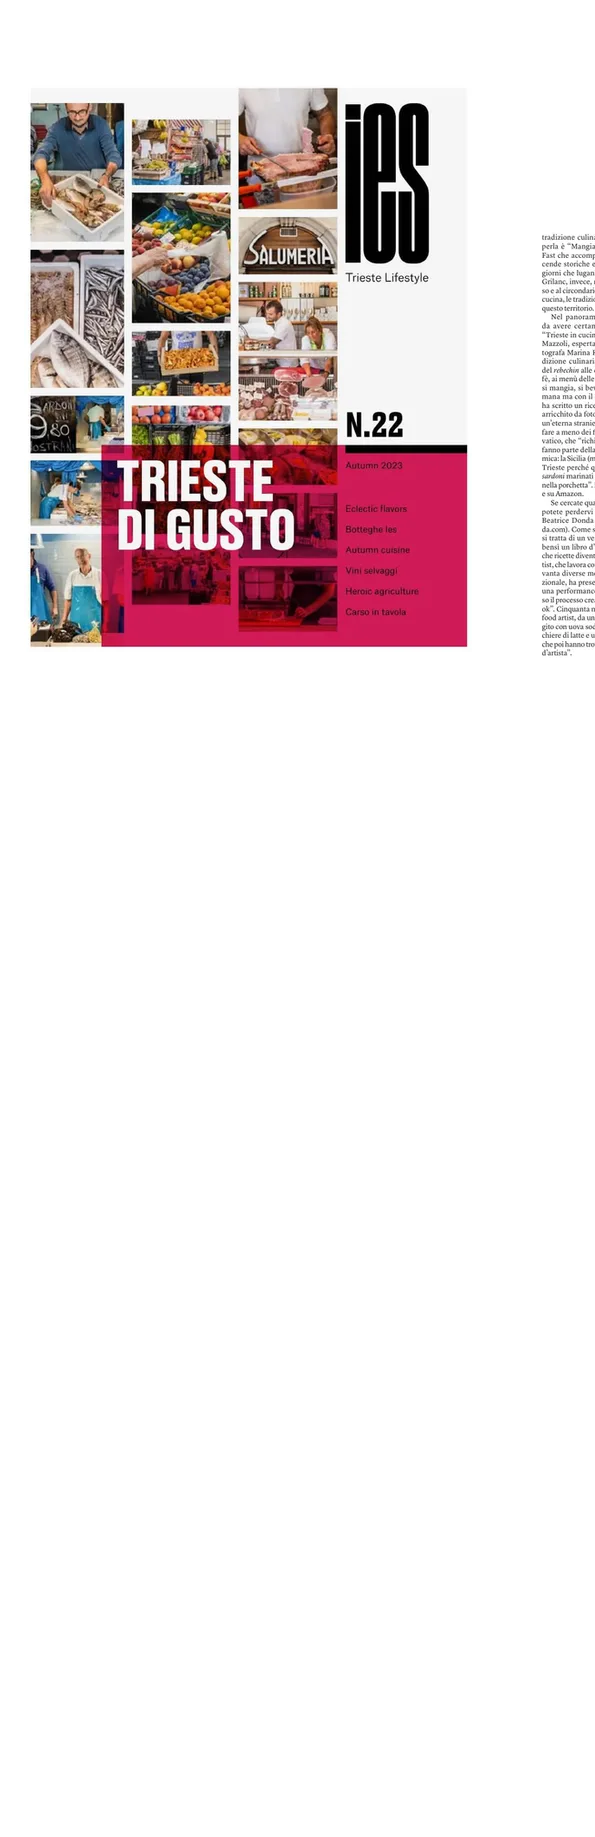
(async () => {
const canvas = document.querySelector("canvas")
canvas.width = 595
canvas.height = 1837
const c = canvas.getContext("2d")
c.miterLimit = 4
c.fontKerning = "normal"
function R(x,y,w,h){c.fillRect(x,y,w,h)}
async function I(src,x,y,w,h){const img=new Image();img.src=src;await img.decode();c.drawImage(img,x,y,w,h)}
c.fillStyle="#fff"
R(0,0,595,1837)
await I("1.png",24,85,448,567)
await I("2.png",542,232,53,426)
})()
